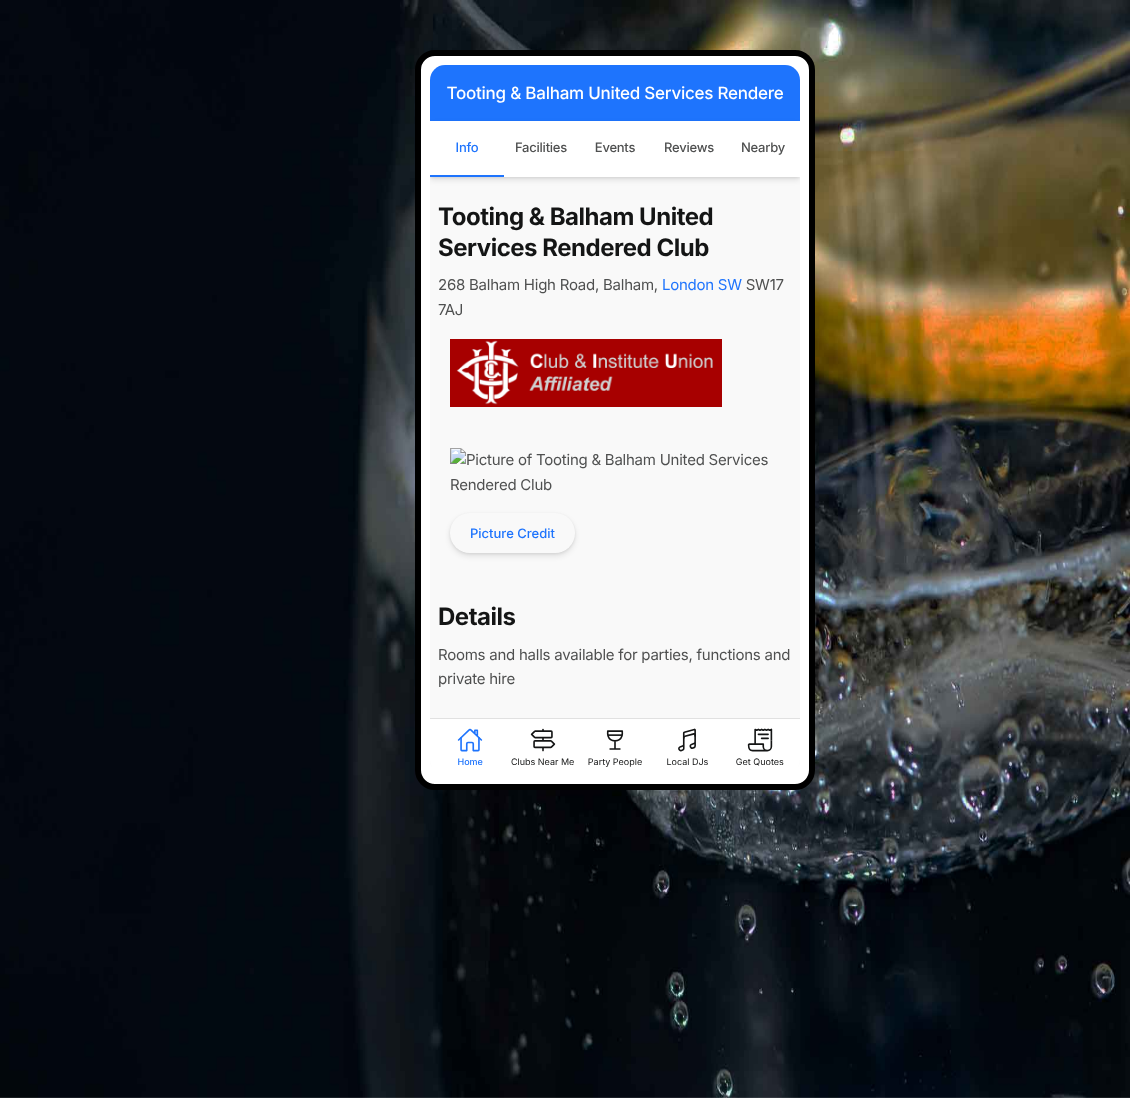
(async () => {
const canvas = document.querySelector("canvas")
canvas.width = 1130
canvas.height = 1098
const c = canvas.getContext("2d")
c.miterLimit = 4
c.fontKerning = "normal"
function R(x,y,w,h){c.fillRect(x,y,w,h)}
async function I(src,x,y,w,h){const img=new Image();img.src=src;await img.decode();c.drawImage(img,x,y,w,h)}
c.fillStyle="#fff"
R(0,0,1130,1098)
await I("1.png",0,0,1130,1098)
c.beginPath()
c.roundRect(418,53,394,734,17)
c.fill()
c.strokeStyle="#000"
c.lineWidth=6
c.stroke()
await I("2.png",430,65,370,702)
})()
